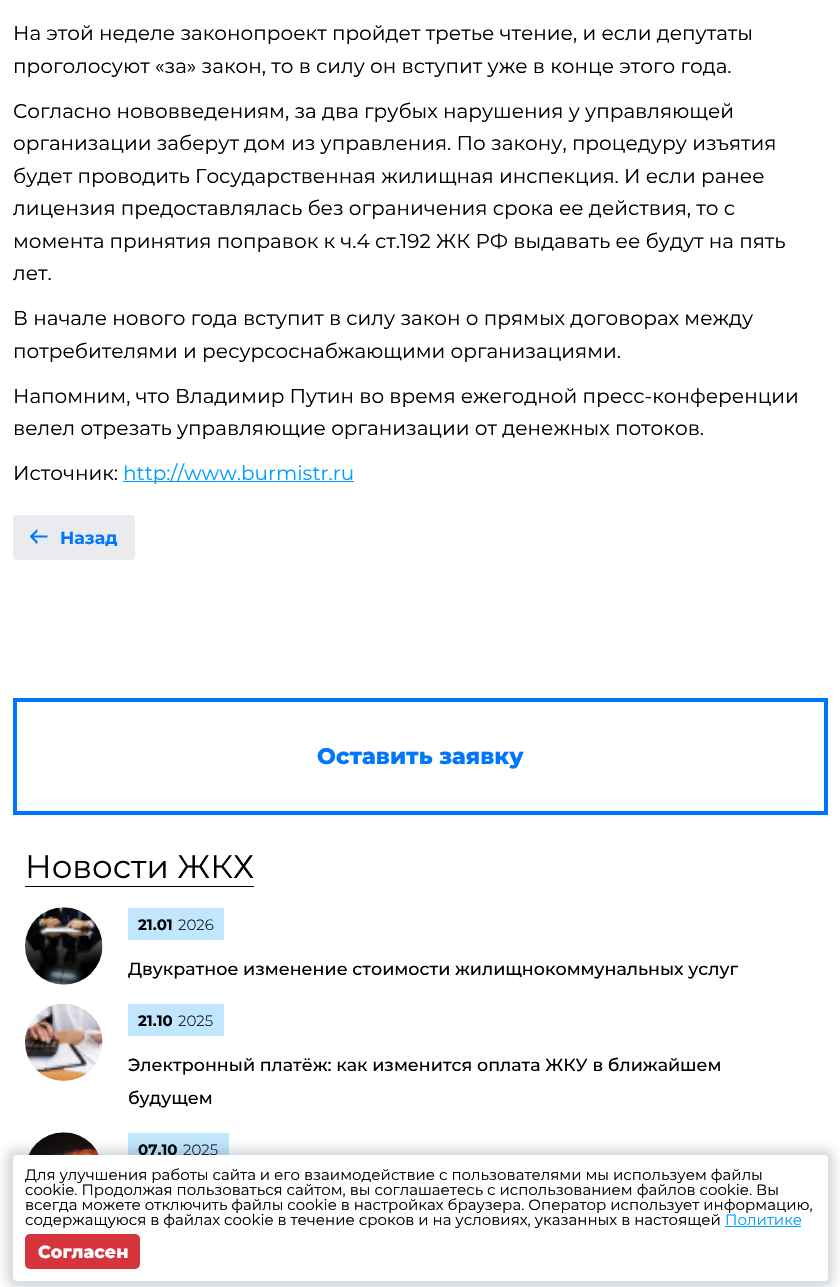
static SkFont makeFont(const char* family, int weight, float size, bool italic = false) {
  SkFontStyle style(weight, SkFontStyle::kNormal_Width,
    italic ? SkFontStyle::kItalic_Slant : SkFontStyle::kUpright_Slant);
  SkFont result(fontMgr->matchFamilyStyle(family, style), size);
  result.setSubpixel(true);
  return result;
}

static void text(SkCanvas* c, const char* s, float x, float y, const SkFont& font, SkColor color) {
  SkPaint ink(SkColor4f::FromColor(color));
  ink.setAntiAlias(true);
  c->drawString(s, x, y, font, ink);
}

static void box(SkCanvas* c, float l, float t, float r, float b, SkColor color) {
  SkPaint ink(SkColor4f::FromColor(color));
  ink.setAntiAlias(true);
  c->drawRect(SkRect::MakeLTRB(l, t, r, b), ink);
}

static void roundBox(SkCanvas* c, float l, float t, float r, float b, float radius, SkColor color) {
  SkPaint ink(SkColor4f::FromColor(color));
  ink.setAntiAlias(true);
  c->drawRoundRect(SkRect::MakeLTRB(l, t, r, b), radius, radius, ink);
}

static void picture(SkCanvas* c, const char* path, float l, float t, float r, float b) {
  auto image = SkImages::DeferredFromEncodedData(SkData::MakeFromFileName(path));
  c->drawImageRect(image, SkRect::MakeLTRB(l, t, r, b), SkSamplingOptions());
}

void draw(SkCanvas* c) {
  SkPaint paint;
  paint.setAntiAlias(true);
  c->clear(0xffffffff);
  SkFont face1 = makeFont("Montserrat", 400, 20);
  text(c, "На этой неделе законопроект пройдет третье чтение, и если депутаты", 13, 40, face1, 0xff000000);
  text(c, "проголосуют «за» закон, то в силу он вступит уже в конце этого года.", 13, 73, face1, 0xff000000);
  text(c, "Согласно нововведениям, за два грубых нарушения у управляющей", 13, 118, face1, 0xff000000);
  text(c, "организации заберут дом из управления. По закону, процедуру изъятия", 13, 150, face1, 0xff000000);
  text(c, "будет проводить Государственная жилищная инспекция. И если ранее", 13, 183, face1, 0xff000000);
  text(c, "лицензия предоставлялась без ограничения срока ее действия, то с", 13, 215, face1, 0xff000000);
  text(c, "момента принятия поправок к ч.4 ст.192 ЖК РФ выдавать ее будут на пять", 13, 248, face1, 0xff000000);
  text(c, "лет.", 13, 280, face1, 0xff000000);
  text(c, "В начале нового года вступит в силу закон о прямых договорах между", 13, 325, face1, 0xff000000);
  text(c, "потребителями и ресурсоснабжающими организациями.", 13, 358, face1, 0xff000000);
  text(c, "Напомним, что Владимир Путин во время ежегодной пресс-конференции", 13, 403, face1, 0xff000000);
  text(c, "велел отрезать управляющие организации от денежных потоков.", 13, 435, face1, 0xff000000);
  text(c, "Источник:", 13, 480, face1, 0xff000000);
  box(c, 123, 481, 354, 482, 0xff009eff);
  text(c, "http://www.burmistr.ru", 123, 480, face1, 0xff009eff);
  roundBox(c, 13, 515, 135, 560, 4, 0xffeaebef);
  picture(c, "img_01.png", 30, 529, 48, 544);
  SkFont face2 = makeFont("Montserrat", 700, 17.5f);
  text(c, "Назад", 60, 544, face2, 0xff0076ff);
  paint.setStyle(SkPaint::kStroke_Style);
  paint.setStrokeWidth(4);
  paint.setColor(0xff0076ff);
  c->drawRect(SkRect::MakeLTRB(15, 700, 826, 813), paint);
  SkFont face3 = makeFont("Montserrat", 800, 22.5f);
  text(c, "Оставить заявку", 317, 764, face3, 0xff0076ff);
  SkFont face4 = makeFont("Montserrat", 400, 32.5f);
  text(c, "Новости ЖКХ", 25, 878, face4, 0xff000000);
  box(c, 25, 886, 254, 887, 0xff000000);
  picture(c, "img_02.png", 25, 907, 103, 985);
  box(c, 128, 908, 224, 940, 0xffc1e7ff);
  SkFont face5 = makeFont("Montserrat", 700, 15);
  text(c, "21.01", 138, 930, face5, 0xff000000);
  SkFont face6 = makeFont("Montserrat", 300, 15);
  text(c, "2026", 178, 930, face6, 0xff000000);
  SkFont face7 = makeFont("Montserrat", 500, 17.5f);
  text(c, "Двукратное изменение стоимости жилищно‑коммунальных услуг", 128, 975, face7, 0xff000000);
  picture(c, "img_03.png", 25, 1003, 103, 1081);
  box(c, 128, 1004, 224, 1036, 0xffc1e7ff);
  text(c, "21.10", 138, 1026, face5, 0xff000000);
  text(c, "2025", 178, 1026, face6, 0xff000000);
  text(c, "Электронный платёж: как изменится оплата ЖКУ в ближайшем", 128, 1071, face7, 0xff000000);
  text(c, "будущем", 128, 1104, face7, 0xff000000);
  picture(c, "img_04.png", 28, 1132, 99, 1155);
  box(c, 128, 1133, 229, 1155, 0xffc1e7ff);
  text(c, "07.10", 138, 1155, face5, 0xff000000);
  text(c, "2025", 183, 1155, face6, 0xff000000);
  paint.setStyle(SkPaint::kFill_Style);
  paint.setColor(0x33223c50);
  paint.setMaskFilter(SkMaskFilter::MakeBlur(kNormal_SkBlurStyle, 5.5f));
  c->drawRoundRect(SkRect::MakeLTRB(6, 1149, 834, 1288), 10, 10, paint);
  paint.setMaskFilter(nullptr);
  roundBox(c, 13, 1155, 828, 1281, 4, 0xffffffff);
  SkFont face8 = makeFont("Montserrat", 400, 15);
  text(c, "Для улучшения работы сайта и его взаимодействие с пользователями мы используем файлы", 25, 1180, face8, 0xff000000);
  text(c, "cookie. Продолжая пользоваться сайтом, вы соглашаетесь с использованием файлов cookie. Вы", 25, 1195, face8, 0xff000000);
  text(c, "всегда можете отключить файлы cookie в настройках браузера. Оператор использует информацию,", 25, 1210, face8, 0xff000000);
  text(c, "содержащуюся в файлах cookie в течение сроков и на условиях, указанных в настоящей", 25, 1225, face8, 0xff000000);
  text(c, "Политике", 725, 1225, face8, 0xff009eff);
  box(c, 725, 1226, 801, 1227, 0xff009eff);
  roundBox(c, 25, 1234, 140, 1269, 5, 0xffd6343d);
  SkFont face9 = makeFont("Montserrat", 800, 17.5f);
  text(c, "Согласен", 38, 1258, face9, 0xffffffff);
}
